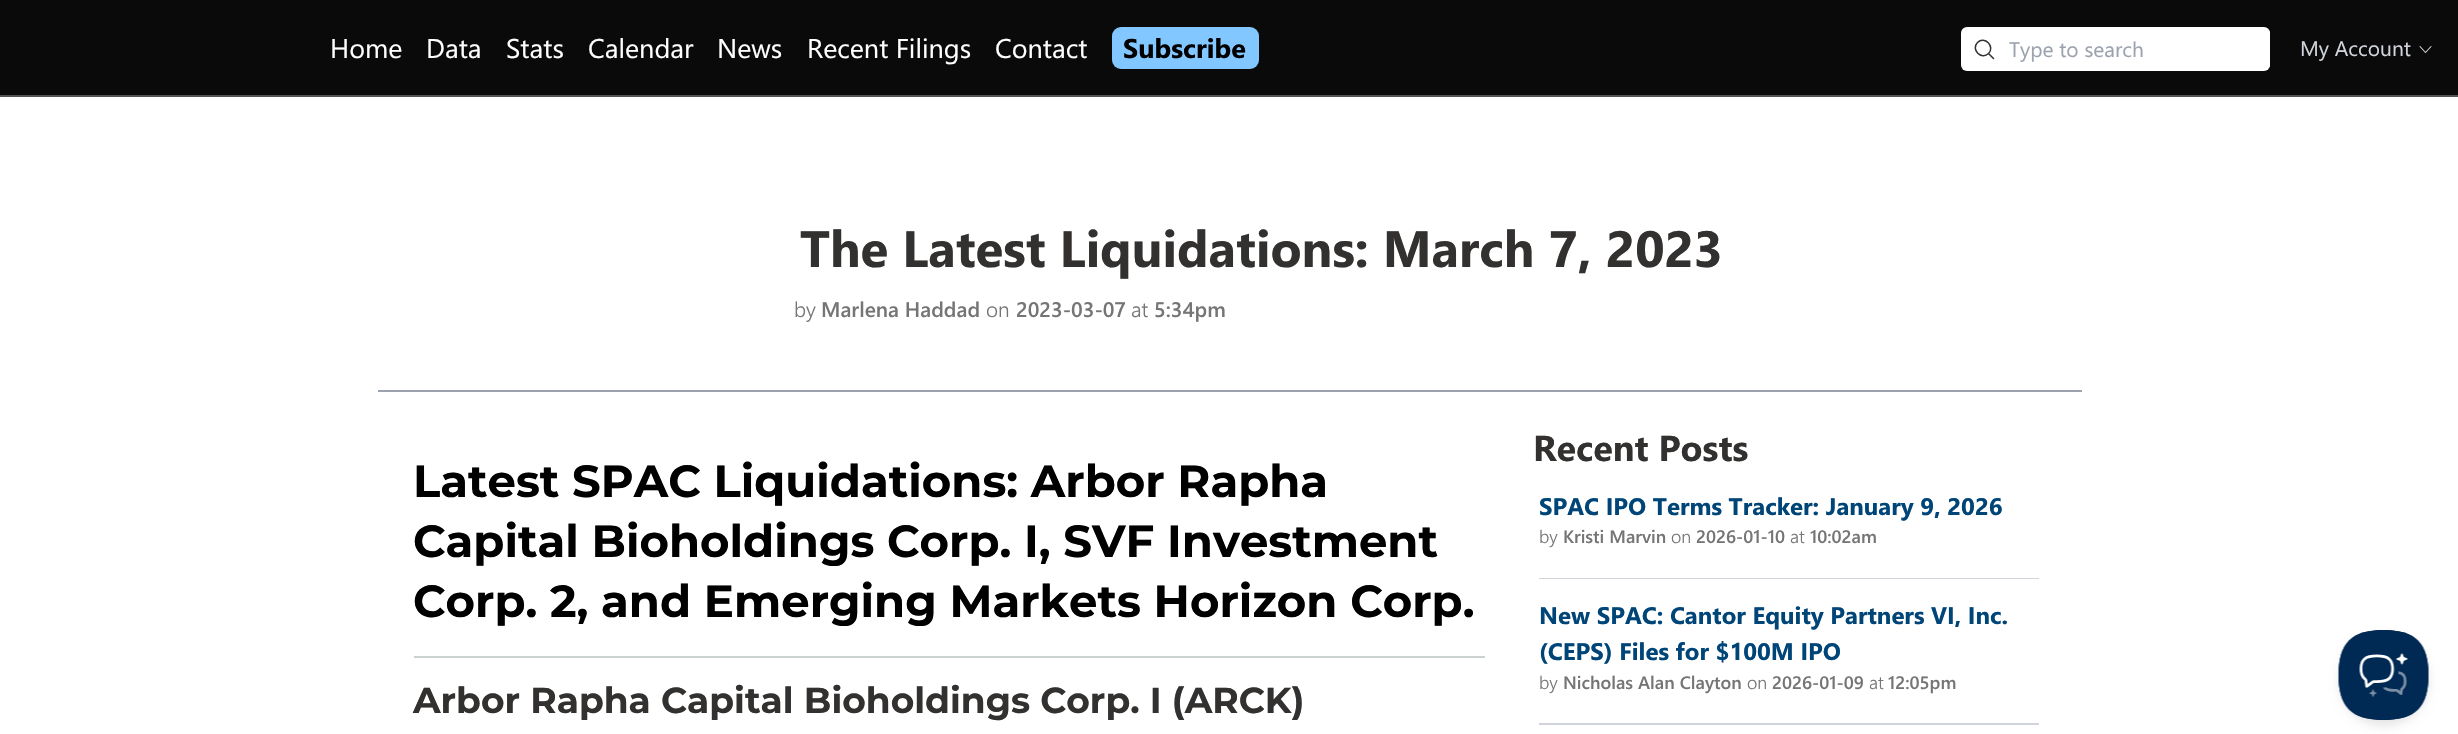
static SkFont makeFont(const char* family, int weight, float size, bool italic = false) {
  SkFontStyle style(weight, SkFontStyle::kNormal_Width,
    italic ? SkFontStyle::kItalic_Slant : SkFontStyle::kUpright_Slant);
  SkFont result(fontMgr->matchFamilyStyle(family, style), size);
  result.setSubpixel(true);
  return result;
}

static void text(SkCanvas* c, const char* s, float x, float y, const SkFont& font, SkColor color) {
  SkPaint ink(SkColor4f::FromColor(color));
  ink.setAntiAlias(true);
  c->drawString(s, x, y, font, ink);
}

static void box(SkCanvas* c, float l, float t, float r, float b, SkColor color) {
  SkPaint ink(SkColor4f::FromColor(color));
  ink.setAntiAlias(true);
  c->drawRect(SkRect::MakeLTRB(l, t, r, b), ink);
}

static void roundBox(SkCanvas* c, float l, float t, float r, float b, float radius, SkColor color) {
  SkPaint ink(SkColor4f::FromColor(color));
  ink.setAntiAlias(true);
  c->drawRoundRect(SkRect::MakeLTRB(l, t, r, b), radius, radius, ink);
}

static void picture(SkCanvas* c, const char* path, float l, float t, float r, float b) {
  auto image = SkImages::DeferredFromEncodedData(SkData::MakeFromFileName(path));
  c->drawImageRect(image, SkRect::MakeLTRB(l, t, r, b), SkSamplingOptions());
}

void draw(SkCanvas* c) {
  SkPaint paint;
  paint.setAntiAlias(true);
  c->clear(0xffffffff);
  box(c, 0, 0, 2458, 95, 0xff0a0a0a);
  box(c, 0, 95, 2458, 97, 0xff535353);
  SkFont face1 = makeFont("Segoe UI", 400, 27);
  text(c, "Home", 330, 58, face1, 0xffffffff);
  text(c, "Data", 426, 58, face1, 0xffffffff);
  text(c, "Stats", 506, 58, face1, 0xffffffff);
  text(c, "Calendar", 588, 58, face1, 0xffffffff);
  text(c, "News", 717, 58, face1, 0xffffffff);
  text(c, "Recent Filings", 807, 58, face1, 0xffffffff);
  text(c, "Contact", 995, 58, face1, 0xffffffff);
  roundBox(c, 1112, 27, 1259, 69, 9, 0xff82c7ff);
  SkFont face2 = makeFont("Segoe UI", 700, 27);
  text(c, "Subscribe", 1123, 58, face2, 0xff000000);
  roundBox(c, 1961, 27, 2270, 71, 6, 0xffffffff);
  paint.setStyle(SkPaint::kStroke_Style);
  paint.setStrokeWidth(1.5f);
  paint.setStrokeCap(SkPaint::kRound_Cap);
  paint.setStrokeJoin(SkPaint::kRound_Join);
  paint.setColor(0xff323130);
  c->drawPath(SkPathBuilder().moveTo(1993.5f, 58.5f).lineTo(1988.5f, 53.5f).moveTo(1988.5f, 53.5f).cubicTo(1995.5f, 46.5f, 1984.5f, 35.5f, 1977.5f, 42.5f).cubicTo(1970.5f, 49.5f, 1981.5f, 60.5f, 1988.5f, 53.5f).close().detach(), paint);
  roundBox(c, 2009, 30, 2270, 68, 3, 0xffffffff);
  SkFont face3 = makeFont("Segoe UI", 400, 21);
  text(c, "Type to search", 2009, 57, face3, 0xff9ca3af);
  text(c, "My Account", 2300, 56, face3, 0xffd1d5db);
  paint.setStrokeWidth(1.1f);
  paint.setColor(0xffd1d5db);
  c->drawPath(SkPathBuilder().moveTo(2431, 46.5f).lineTo(2425.5f, 52.5f).lineTo(2420, 46.5f).detach(), paint);
  box(c, 378, 390, 2082, 392, 0xff9ca3af);
  SkFont face4 = makeFont("Segoe UI", 700, 51);
  text(c, "The Latest Liquidations: March 7, 2023", 800, 267, face4, 0xff323130);
  SkFont face5 = makeFont("Segoe UI", 300, 21);
  text(c, "by", 794, 317, face5, 0xff757575);
  SkFont face6 = makeFont("Segoe UI", 600, 21);
  text(c, "Marlena Haddad", 821, 317, face6, 0xff757575);
  text(c, "on", 986, 317, face5, 0xff757575);
  text(c, "2023-03-07", 1016, 317, face6, 0xff757575);
  text(c, "at", 1131, 317, face5, 0xff757575);
  text(c, "5:34pm", 1154, 317, face6, 0xff757575);
  SkFont face7 = makeFont("Montserrat", 700, 45);
  text(c, "Latest SPAC Liquidations: Arbor Rapha", 413, 497, face7, 0xff000000);
  text(c, "Capital Bioholdings Corp. I, SVF Investment", 413, 557, face7, 0xff000000);
  text(c, "Corp. 2, and Emerging Markets Horizon Corp.", 413, 617, face7, 0xff000000);
  box(c, 414, 656, 1485, 658, 0xffccd1d1);
  SkFont face8 = makeFont("Montserrat", 700, 36);
  text(c, "Arbor Rapha Capital Bioholdings Corp. I (ARCK)", 413, 713, face8, 0xff323130);
  SkFont face9 = makeFont("Segoe UI", 700, 36);
  text(c, "Recent Posts", 1533, 461, face9, 0xff323130);
  box(c, 1539, 578, 2039, 579, 0xffd1d5db);
  SkFont face10 = makeFont("Segoe UI", 700, 24);
  text(c, "SPAC IPO Terms Tracker: January 9, 2026", 1539, 515, face10, 0xff004578);
  SkFont face11 = makeFont("Segoe UI", 300, 18);
  text(c, "by", 1539, 543, face11, 0xff757575);
  SkFont face12 = makeFont("Segoe UI", 600, 18);
  text(c, "Kristi Marvin", 1563, 543, face12, 0xff757575);
  text(c, "on", 1671, 543, face11, 0xff757575);
  text(c, "2026-01-10", 1696, 543, face12, 0xff757575);
  text(c, "at", 1790, 543, face11, 0xff757575);
  text(c, "10:02am", 1810, 543, face12, 0xff757575);
  box(c, 1539, 723, 2039, 725, 0xffd1d5db);
  text(c, "New SPAC: Cantor Equity Partners VI, Inc.", 1539, 624, face10, 0xff004578);
  text(c, "(CEPS) Files for $100M IPO", 1539, 660, face10, 0xff004578);
  text(c, "by", 1539, 689, face11, 0xff757575);
  text(c, "Nicholas Alan Clayton", 1563, 689, face12, 0xff757575);
  text(c, "on", 1747, 689, face11, 0xff757575);
  text(c, "2026-01-09", 1772, 689, face12, 0xff757575);
  text(c, "at", 1869, 689, face11, 0xff757575);
  text(c, "12:05pm", 1888, 689, face12, 0xff757575);
  paint.setStyle(SkPaint::kFill_Style);
  paint.setColor(0x1a000000);
  paint.setMaskFilter(SkMaskFilter::MakeBlur(kNormal_SkBlurStyle, 5));
  c->drawRoundRect(SkRect::MakeLTRB(2339, 636, 2429, 726), 45, 45, paint);
  paint.setMaskFilter(nullptr);
  picture(c, "img_01.png", 2338, 630, 2429, 720);
}
